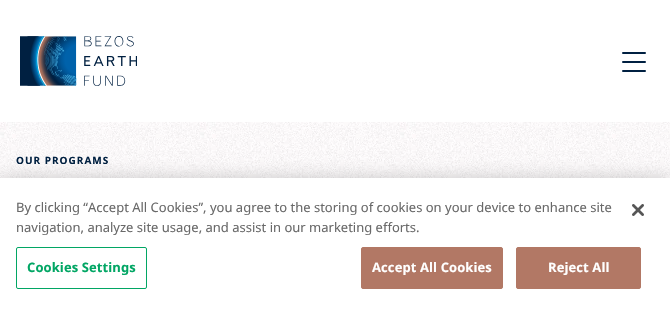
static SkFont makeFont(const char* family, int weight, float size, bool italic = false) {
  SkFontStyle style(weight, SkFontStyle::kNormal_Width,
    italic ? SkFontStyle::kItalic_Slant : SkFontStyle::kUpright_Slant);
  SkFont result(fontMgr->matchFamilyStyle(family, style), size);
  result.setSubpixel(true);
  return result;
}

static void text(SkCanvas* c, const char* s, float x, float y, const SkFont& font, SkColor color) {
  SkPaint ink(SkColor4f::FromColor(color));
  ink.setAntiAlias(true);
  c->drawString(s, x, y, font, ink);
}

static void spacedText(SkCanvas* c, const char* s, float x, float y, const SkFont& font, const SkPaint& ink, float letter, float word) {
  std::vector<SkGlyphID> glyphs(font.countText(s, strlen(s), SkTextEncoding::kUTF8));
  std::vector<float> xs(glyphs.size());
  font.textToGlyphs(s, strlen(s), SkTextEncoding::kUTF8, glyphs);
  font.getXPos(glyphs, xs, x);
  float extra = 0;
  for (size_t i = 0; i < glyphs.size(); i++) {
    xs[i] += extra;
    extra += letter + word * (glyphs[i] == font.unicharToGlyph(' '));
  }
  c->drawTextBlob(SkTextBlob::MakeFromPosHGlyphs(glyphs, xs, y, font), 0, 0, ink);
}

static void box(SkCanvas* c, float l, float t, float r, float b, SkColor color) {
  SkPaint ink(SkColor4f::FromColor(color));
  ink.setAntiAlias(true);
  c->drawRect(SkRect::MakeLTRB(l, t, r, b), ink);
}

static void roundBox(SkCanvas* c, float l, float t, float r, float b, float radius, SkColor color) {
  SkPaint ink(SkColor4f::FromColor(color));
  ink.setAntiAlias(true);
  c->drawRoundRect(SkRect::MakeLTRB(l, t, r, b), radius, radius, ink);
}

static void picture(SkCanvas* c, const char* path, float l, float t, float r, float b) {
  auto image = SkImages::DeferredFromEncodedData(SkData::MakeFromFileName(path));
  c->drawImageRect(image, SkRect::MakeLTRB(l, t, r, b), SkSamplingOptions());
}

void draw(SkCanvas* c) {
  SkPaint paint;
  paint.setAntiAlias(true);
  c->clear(0xffffffff);
  picture(c, "img_01.png", 20, 36, 137, 86);
  roundBox(c, 622, 52, 646, 54, 1, 0xff002041);
  roundBox(c, 622, 61, 646, 63, 1, 0xff002041);
  roundBox(c, 622, 70, 646, 72, 1, 0xff002041);
  picture(c, "img_02.png", 0, 122, 670, 178);
  SkFont face1 = makeFont("Noto Sans", 700, 10);
  paint.setColor(0xff002041);
  spacedText(c, "OUR PROGRAMS", 16, 164, face1, paint, 1, 0);
  paint.setColor(0x33000000);
  paint.setMaskFilter(SkMaskFilter::MakeBlur(kNormal_SkBlurStyle, 9));
  c->drawRect(SkRect::MakeLTRB(0, 178, 670, 310), paint);
  paint.setMaskFilter(nullptr);
  box(c, 0, 178, 670, 310, 0xffffffff);
  SkFont face2 = makeFont("Noto Sans", 400, 13);
  text(c, "By clicking “Accept All Cookies”, you agree to the storing of cookies on your device to enhance site", 16, 212, face2, 0xff696969);
  text(c, "navigation, analyze site usage, and assist in our marketing efforts.", 16, 232, face2, 0xff696969);
  paint.setStyle(SkPaint::kStroke_Style);
  paint.setStrokeWidth(1);
  paint.setColor(0xff01a664);
  c->drawRoundRect(SkRect::MakeLTRB(16.5f, 247.5f, 146.5f, 288.5f), 1.5f, 1.5f, paint);
  SkFont face3 = makeFont("Noto Sans", 700, 13);
  paint.setStyle(SkPaint::kFill_Style);
  spacedText(c, "Cookies Settings", 27, 272, face3, paint, 0.1f, 0);
  paint.setColor(0xffb27865);
  c->drawRoundRect(SkRect::MakeLTRB(361.5f, 247.5f, 502.5f, 288.5f), 1.5f, 1.5f, paint);
  paint.setStyle(SkPaint::kStroke_Style);
  c->drawRoundRect(SkRect::MakeLTRB(361.5f, 247.5f, 502.5f, 288.5f), 1.5f, 1.5f, paint);
  paint.setStyle(SkPaint::kFill_Style);
  paint.setColor(0xffffffff);
  spacedText(c, "Accept All Cookies", 372, 272, face3, paint, 0.1f, 0);
  paint.setColor(0xffb27865);
  c->drawRoundRect(SkRect::MakeLTRB(516.5f, 247.5f, 640.5f, 288.5f), 1.5f, 1.5f, paint);
  paint.setStyle(SkPaint::kStroke_Style);
  c->drawRoundRect(SkRect::MakeLTRB(516.5f, 247.5f, 640.5f, 288.5f), 1.5f, 1.5f, paint);
  paint.setStyle(SkPaint::kFill_Style);
  paint.setColor(0xffffffff);
  spacedText(c, "Reject All", 548, 272, face3, paint, 0.1f, 0);
  picture(c, "img_03.png", 632, 204, 644, 216);
}
